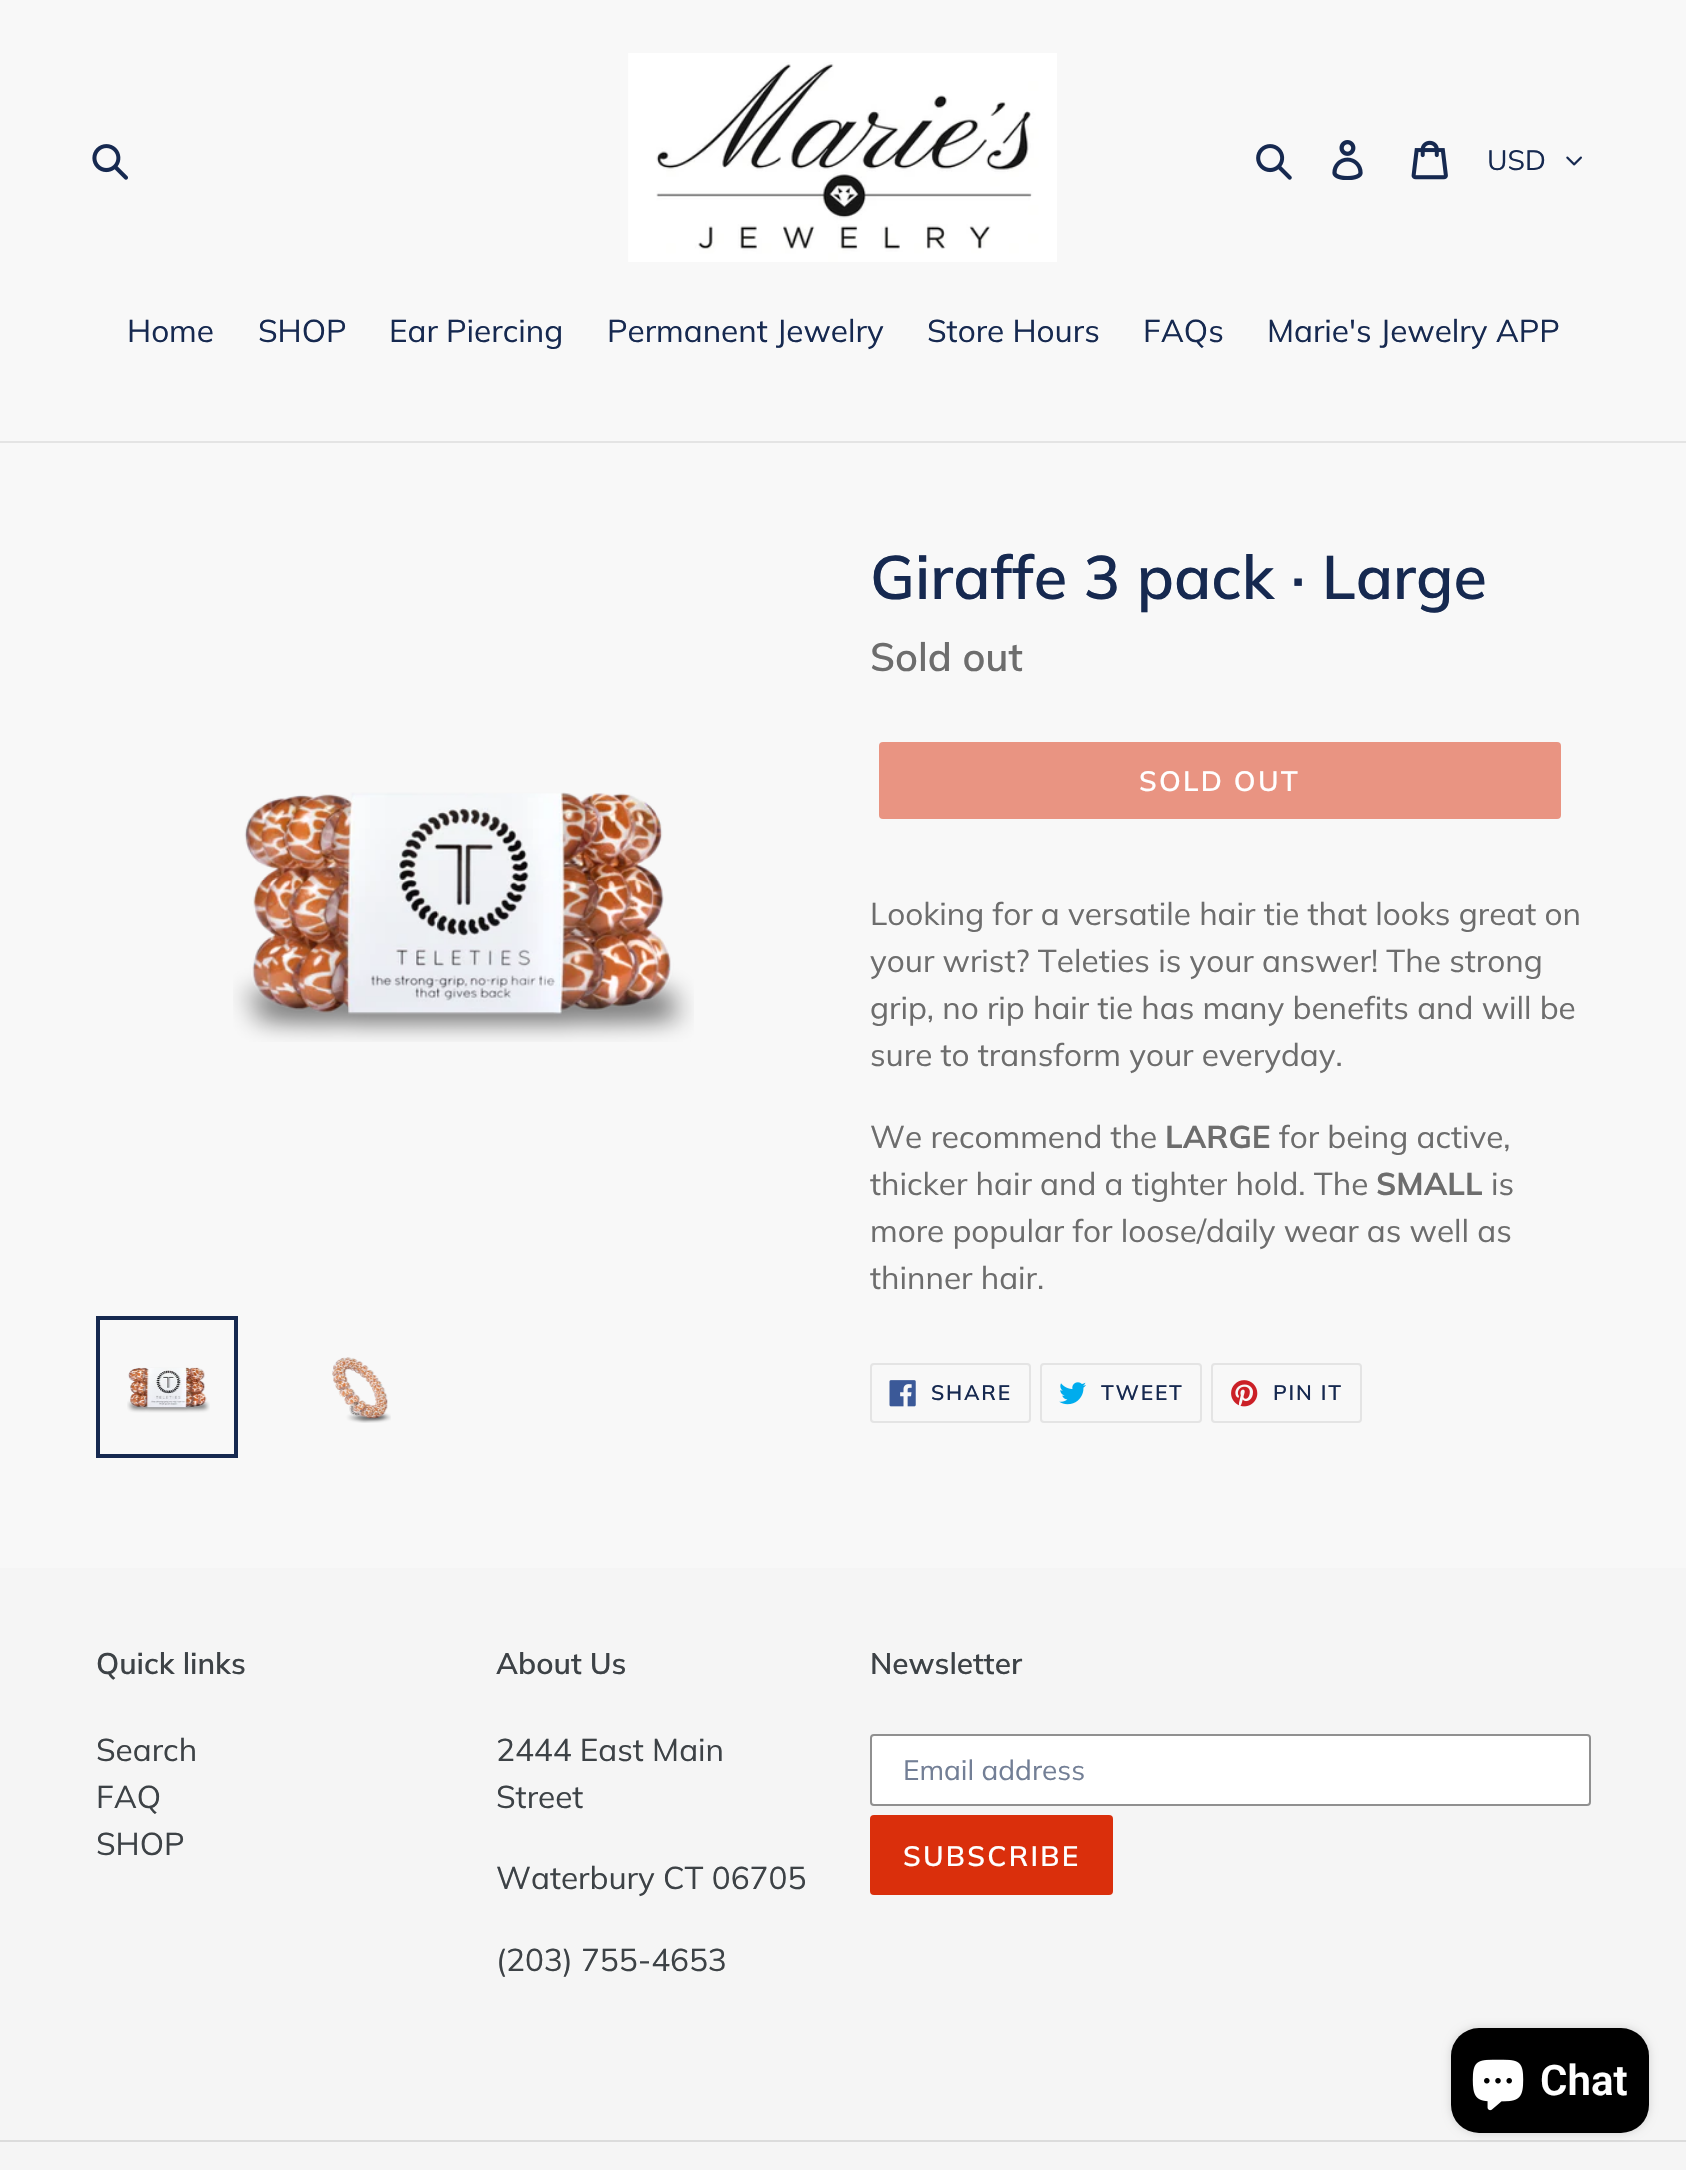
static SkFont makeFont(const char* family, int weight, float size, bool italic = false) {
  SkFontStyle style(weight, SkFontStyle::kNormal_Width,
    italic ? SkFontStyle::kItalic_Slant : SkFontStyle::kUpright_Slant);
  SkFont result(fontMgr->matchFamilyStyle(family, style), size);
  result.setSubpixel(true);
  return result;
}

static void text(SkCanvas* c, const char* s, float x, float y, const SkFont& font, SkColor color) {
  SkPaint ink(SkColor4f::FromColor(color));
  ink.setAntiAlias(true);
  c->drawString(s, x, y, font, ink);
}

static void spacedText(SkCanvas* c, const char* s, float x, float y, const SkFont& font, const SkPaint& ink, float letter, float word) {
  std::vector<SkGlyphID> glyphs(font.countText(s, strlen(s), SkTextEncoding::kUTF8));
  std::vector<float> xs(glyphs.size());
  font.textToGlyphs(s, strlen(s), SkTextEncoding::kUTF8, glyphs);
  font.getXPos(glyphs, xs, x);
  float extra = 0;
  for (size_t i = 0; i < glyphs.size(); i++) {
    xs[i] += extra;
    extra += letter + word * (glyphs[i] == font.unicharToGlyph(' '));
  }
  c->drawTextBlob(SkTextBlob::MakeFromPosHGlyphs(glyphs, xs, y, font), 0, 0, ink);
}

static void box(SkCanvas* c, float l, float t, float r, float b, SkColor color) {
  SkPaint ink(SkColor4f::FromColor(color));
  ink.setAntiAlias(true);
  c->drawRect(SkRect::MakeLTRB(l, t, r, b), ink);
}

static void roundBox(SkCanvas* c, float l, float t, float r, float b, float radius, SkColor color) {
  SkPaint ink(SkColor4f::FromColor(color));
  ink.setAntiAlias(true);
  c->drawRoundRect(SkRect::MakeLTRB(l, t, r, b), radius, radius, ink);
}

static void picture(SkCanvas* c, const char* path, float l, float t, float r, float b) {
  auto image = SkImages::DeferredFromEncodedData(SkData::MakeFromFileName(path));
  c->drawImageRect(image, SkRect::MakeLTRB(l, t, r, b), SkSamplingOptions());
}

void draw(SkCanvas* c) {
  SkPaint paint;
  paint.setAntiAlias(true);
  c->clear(0xfff8f8f8);
  picture(c, "img_01.png", 92, 144, 128, 180);
  picture(c, "img_02.png", 628, 53, 1057, 262);
  picture(c, "img_03.png", 1256, 144, 1292, 180);
  picture(c, "img_04.png", 1332, 140, 1363, 180);
  picture(c, "img_05.png", 1411, 140, 1448, 180);
  SkFont face1 = makeFont("Muli", 400, 28);
  text(c, "USD", 1487, 170, face1, 0xff162950);
  picture(c, "img_06.png", 1566, 156, 1582, 166);
  box(c, 0, 441, 1686, 443, 0xffe4e4e4);
  SkFont face2 = makeFont("Muli", 400, 31.5f);
  text(c, "Home", 127, 342, face2, 0xff162950);
  text(c, "SHOP", 258, 342, face2, 0xff162950);
  text(c, "Ear Piercing", 389, 342, face2, 0xff162950);
  text(c, "Permanent Jewelry", 607, 342, face2, 0xff162950);
  text(c, "Store Hours", 927, 342, face2, 0xff162950);
  text(c, "FAQs", 1143, 342, face2, 0xff162950);
  text(c, "Marie's Jewelry APP", 1267, 342, face2, 0xff162950);
  picture(c, "img_07.png", 233, 792, 694, 1042);
  paint.setStyle(SkPaint::kStroke_Style);
  paint.setStrokeWidth(4);
  paint.setColor(0xff162950);
  c->drawRect(SkRect::MakeLTRB(98, 1318, 236, 1456), paint);
  picture(c, "img_08.png", 127, 1367, 210, 1413);
  picture(c, "img_09.png", 332, 1357, 391, 1423);
  SkFont face3 = makeFont("Muli", 600, 61.25f);
  text(c, "Giraffe 3 pack · Large", 870, 599, face3, 0xff162950);
  SkFont face4 = makeFont("Muli", 600, 39.5f);
  text(c, "Sold out", 870, 671, face4, 0xff6d6d6d);
  roundBox(c, 879, 742, 1561, 819, 4, 0xffe99482);
  SkFont face5 = makeFont("Muli", 600, 28);
  paint.setStyle(SkPaint::kFill_Style);
  paint.setColor(0xffffffff);
  spacedText(c, "SOLD OUT", 1139, 791, face5, paint, 2.25f, 0);
  text(c, "Looking for a versatile hair tie that looks great on", 870, 925, face2, 0xff6d6d6d);
  text(c, "your wrist? Teleties is your answer! The strong", 870, 972, face2, 0xff6d6d6d);
  text(c, "grip, no rip hair tie has many benefits and will be", 870, 1019, face2, 0xff6d6d6d);
  text(c, "sure to transform your everyday.", 870, 1066, face2, 0xff6d6d6d);
  text(c, "We recommend the", 870, 1148, face2, 0xff6d6d6d);
  SkFont face6 = makeFont("Muli", 700, 31.5f);
  text(c, "LARGE", 1165, 1148, face6, 0xff6d6d6d);
  text(c, "for being active,", 1279, 1148, face2, 0xff6d6d6d);
  text(c, "thicker hair and a tighter hold. The", 870, 1195, face2, 0xff6d6d6d);
  text(c, "SMALL", 1376, 1195, face6, 0xff6d6d6d);
  text(c, "is", 1491, 1195, face2, 0xff6d6d6d);
  text(c, "more popular for loose/daily wear as well as", 870, 1242, face2, 0xff6d6d6d);
  text(c, "thinner hair.", 870, 1289, face2, 0xff6d6d6d);
  paint.setStyle(SkPaint::kStroke_Style);
  paint.setStrokeWidth(2);
  paint.setColor(0xffe4e4e4);
  c->drawRoundRect(SkRect::MakeLTRB(871, 1364, 1030, 1422), 3, 3, paint);
  picture(c, "img_10.png", 889, 1380, 916, 1407);
  SkFont face7 = makeFont("Muli", 600, 21);
  paint.setStyle(SkPaint::kFill_Style);
  paint.setColor(0xff162950);
  spacedText(c, "SHARE", 931, 1400, face7, paint, 1.75f, 0);
  paint.setStyle(SkPaint::kStroke_Style);
  paint.setColor(0xffe4e4e4);
  c->drawRoundRect(SkRect::MakeLTRB(1041, 1364, 1201, 1422), 3, 3, paint);
  picture(c, "img_11.png", 1059, 1382, 1086, 1405);
  paint.setStyle(SkPaint::kFill_Style);
  paint.setColor(0xff162950);
  spacedText(c, "TWEET", 1101, 1400, face7, paint, 1.75f, 0);
  paint.setStyle(SkPaint::kStroke_Style);
  paint.setColor(0xffe4e4e4);
  c->drawRoundRect(SkRect::MakeLTRB(1212, 1364, 1361, 1422), 3, 3, paint);
  picture(c, "img_12.png", 1231, 1380, 1258, 1407);
  paint.setStyle(SkPaint::kFill_Style);
  paint.setColor(0xff162950);
  spacedText(c, "PIN IT", 1273, 1400, face7, paint, 1.75f, 0);
  box(c, 0, 1568, 1686, 2170, 0xfff5f5f5);
  SkFont face8 = makeFont("Muli", 600, 29.75f);
  text(c, "Quick links", 96, 1674, face8, 0xff3d4246);
  text(c, "Search", 96, 1761, face2, 0xff3d4246);
  text(c, "FAQ", 96, 1808, face2, 0xff3d4246);
  text(c, "SHOP", 96, 1855, face2, 0xff3d4246);
  text(c, "About Us", 496, 1674, face8, 0xff3d4246);
  text(c, "2444 East Main", 496, 1761, face2, 0xff3d4246);
  text(c, "Street", 496, 1808, face2, 0xff3d4246);
  text(c, "Waterbury CT 06705", 496, 1889, face2, 0xff3d4246);
  text(c, "(203) 755-4653", 496, 1971, face2, 0xff3d4246);
  text(c, "Newsletter", 870, 1674, face8, 0xff3d4246);
  paint.setColor(0xffffffff);
  c->drawRoundRect(SkRect::MakeLTRB(871, 1735, 1590, 1805), 3, 3, paint);
  paint.setStyle(SkPaint::kStroke_Style);
  paint.setColor(0xff909090);
  c->drawRoundRect(SkRect::MakeLTRB(871, 1735, 1590, 1805), 3, 3, paint);
  text(c, "Email address", 903, 1780, face1, 0xff737f96);
  roundBox(c, 870, 1815, 1113, 1895, 4, 0xffda2f0c);
  paint.setStyle(SkPaint::kFill_Style);
  paint.setColor(0xffffffff);
  spacedText(c, "SUBSCRIBE", 903, 1866, face5, paint, 2.25f, 0);
  box(c, 0, 2140, 1686, 2142, 0xffdcdcdc);
  paint.setColor(0x26000000);
  paint.setMaskFilter(SkMaskFilter::MakeBlur(kNormal_SkBlurStyle, 4.5f));
  c->drawRoundRect(SkRect::MakeLTRB(1451, 2028, 1649, 2133), 28, 28, paint);
  paint.setMaskFilter(nullptr);
  roundBox(c, 1451, 2028, 1649, 2133, 28, 0xff000000);
  picture(c, "img_13.png", 1472, 2059, 1524, 2111);
  SkFont face9 = makeFont("Roboto", 600, 42);
  text(c, "Chat", 1540, 2095, face9, 0xffffffff);
}
